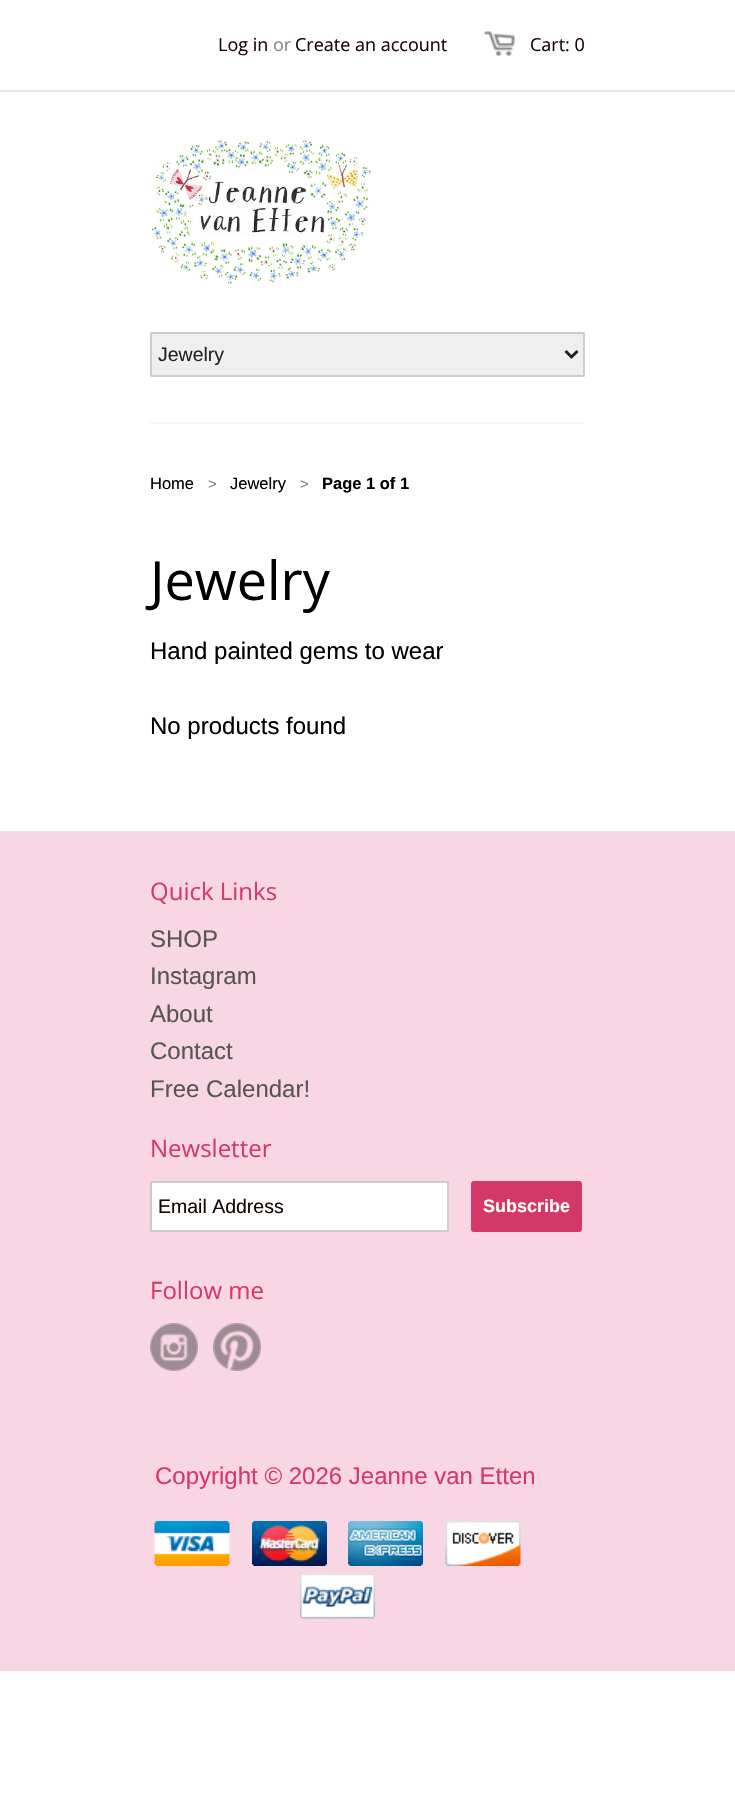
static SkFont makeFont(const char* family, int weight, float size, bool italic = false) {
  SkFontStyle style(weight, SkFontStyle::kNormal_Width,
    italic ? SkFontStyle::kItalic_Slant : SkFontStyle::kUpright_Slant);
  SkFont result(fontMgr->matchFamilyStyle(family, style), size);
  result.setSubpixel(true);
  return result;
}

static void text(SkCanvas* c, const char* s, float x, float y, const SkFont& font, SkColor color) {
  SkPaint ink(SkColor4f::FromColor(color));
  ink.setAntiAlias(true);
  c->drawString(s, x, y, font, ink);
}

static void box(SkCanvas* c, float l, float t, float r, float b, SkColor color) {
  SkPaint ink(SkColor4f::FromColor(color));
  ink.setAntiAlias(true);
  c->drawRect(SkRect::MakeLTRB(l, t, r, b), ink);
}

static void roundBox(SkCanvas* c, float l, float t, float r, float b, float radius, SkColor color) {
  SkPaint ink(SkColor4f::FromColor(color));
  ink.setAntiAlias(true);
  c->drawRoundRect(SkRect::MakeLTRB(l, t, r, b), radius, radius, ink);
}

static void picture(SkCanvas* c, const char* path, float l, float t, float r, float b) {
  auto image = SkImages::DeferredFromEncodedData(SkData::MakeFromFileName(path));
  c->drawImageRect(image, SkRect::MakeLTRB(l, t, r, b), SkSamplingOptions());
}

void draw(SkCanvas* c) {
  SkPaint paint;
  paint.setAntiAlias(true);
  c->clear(0xffffffff);
  box(c, 0, 90, 735, 92, 0xffe5e5e5);
  SkFont face1 = makeFont("Open Sans", 400, 18);
  text(c, "Log in", 218, 51, face1, 0xff190303);
  text(c, "or", 273, 51, face1, 0xff888888);
  text(c, "Create an account", 295, 51, face1, 0xff190303);
  picture(c, "img_01.png", 484, 31, 515, 56);
  text(c, "Cart: 0", 530, 51, face1, 0xff190303);
  box(c, 150, 422, 585, 424, 0xfffaf5f5);
  picture(c, "img_02.png", 150, 137, 371, 287);
  paint.setColor(0xffefefef);
  c->drawRoundRect(SkRect::MakeLTRB(151, 333, 584, 376), 0.5f, 0.5f, paint);
  paint.setStyle(SkPaint::kStroke_Style);
  paint.setStrokeWidth(2);
  paint.setColor(0xffcccccc);
  c->drawRoundRect(SkRect::MakeLTRB(151, 333, 584, 376), 0.5f, 0.5f, paint);
  paint.setStrokeWidth(3);
  paint.setColor(0xff222222);
  c->drawPath(SkPathBuilder().moveTo(565.5f, 351).lineTo(571.5f, 357).lineTo(577.5f, 351).detach(), paint);
  SkFont face2 = makeFont("Liberation Sans", 400, 19.5f);
  text(c, "Jewelry", 158, 361, face2, 0xff222222);
  SkFont face3 = makeFont("Liberation Sans", 400, 16.5f);
  text(c, "Home", 150, 489, face3, 0xff000000);
  SkFont face4 = makeFont("Liberation Sans", 400, 15);
  text(c, ">", 208, 489, face4, 0xff808080);
  text(c, "Jewelry", 230, 489, face3, 0xff000000);
  text(c, ">", 300, 489, face4, 0xff808080);
  SkFont face5 = makeFont("Liberation Sans", 700, 16.5f);
  text(c, "Page 1 of 1", 322, 489, face5, 0xff000000);
  SkFont face6 = makeFont("Open Sans", 400, 54);
  text(c, "Jewelry", 150, 600, face6, 0xff000000);
  SkFont face7 = makeFont("Liberation Sans", 400, 24);
  text(c, "Hand painted gems to wear", 150, 659, face7, 0xff000000);
  text(c, "No products found", 150, 734, face7, 0xff000000);
  box(c, 0, 833, 735, 1671, 0xfff9d6e4);
  box(c, 0, 831, 735, 833, 0xffe5e5e5);
  SkFont face8 = makeFont("Open Sans", 400, 24);
  text(c, "Quick Links", 150, 900, face8, 0xffd43869);
  text(c, "SHOP", 150, 947, face7, 0xff555555);
  text(c, "Instagram", 150, 984, face7, 0xff555555);
  text(c, "About", 150, 1022, face7, 0xff555555);
  text(c, "Contact", 150, 1059, face7, 0xff555555);
  text(c, "Free Calendar!", 150, 1097, face7, 0xff555555);
  text(c, "Newsletter", 150, 1157, face8, 0xffd43869);
  paint.setStyle(SkPaint::kFill_Style);
  paint.setColor(0xffffffff);
  c->drawRoundRect(SkRect::MakeLTRB(151, 1182, 448, 1231), 0.5f, 0.5f, paint);
  paint.setStyle(SkPaint::kStroke_Style);
  paint.setStrokeWidth(2);
  paint.setColor(0xffcccccc);
  c->drawRoundRect(SkRect::MakeLTRB(151, 1182, 448, 1231), 0.5f, 0.5f, paint);
  text(c, "Email Address", 158, 1213, face2, 0xff190303);
  roundBox(c, 471, 1181, 582, 1232, 3, 0xffd43869);
  SkFont face9 = makeFont("Liberation Sans", 700, 18);
  text(c, "Subscribe", 483, 1212, face9, 0xffffffff);
  text(c, "Follow me", 150, 1299, face8, 0xffd43869);
  picture(c, "img_03.png", 150, 1323, 198, 1371);
  picture(c, "img_04.png", 213, 1323, 261, 1371);
  text(c, "Copyright © 2026 Jeanne van Etten", 155, 1484, face7, 0xffd43869);
  picture(c, "img_05.png", 154, 1521, 230, 1566);
  picture(c, "img_06.png", 252, 1521, 327, 1566);
  picture(c, "img_07.png", 348, 1521, 423, 1566);
  picture(c, "img_08.png", 445, 1521, 521, 1566);
  picture(c, "img_09.png", 300, 1573, 375, 1619);
}
